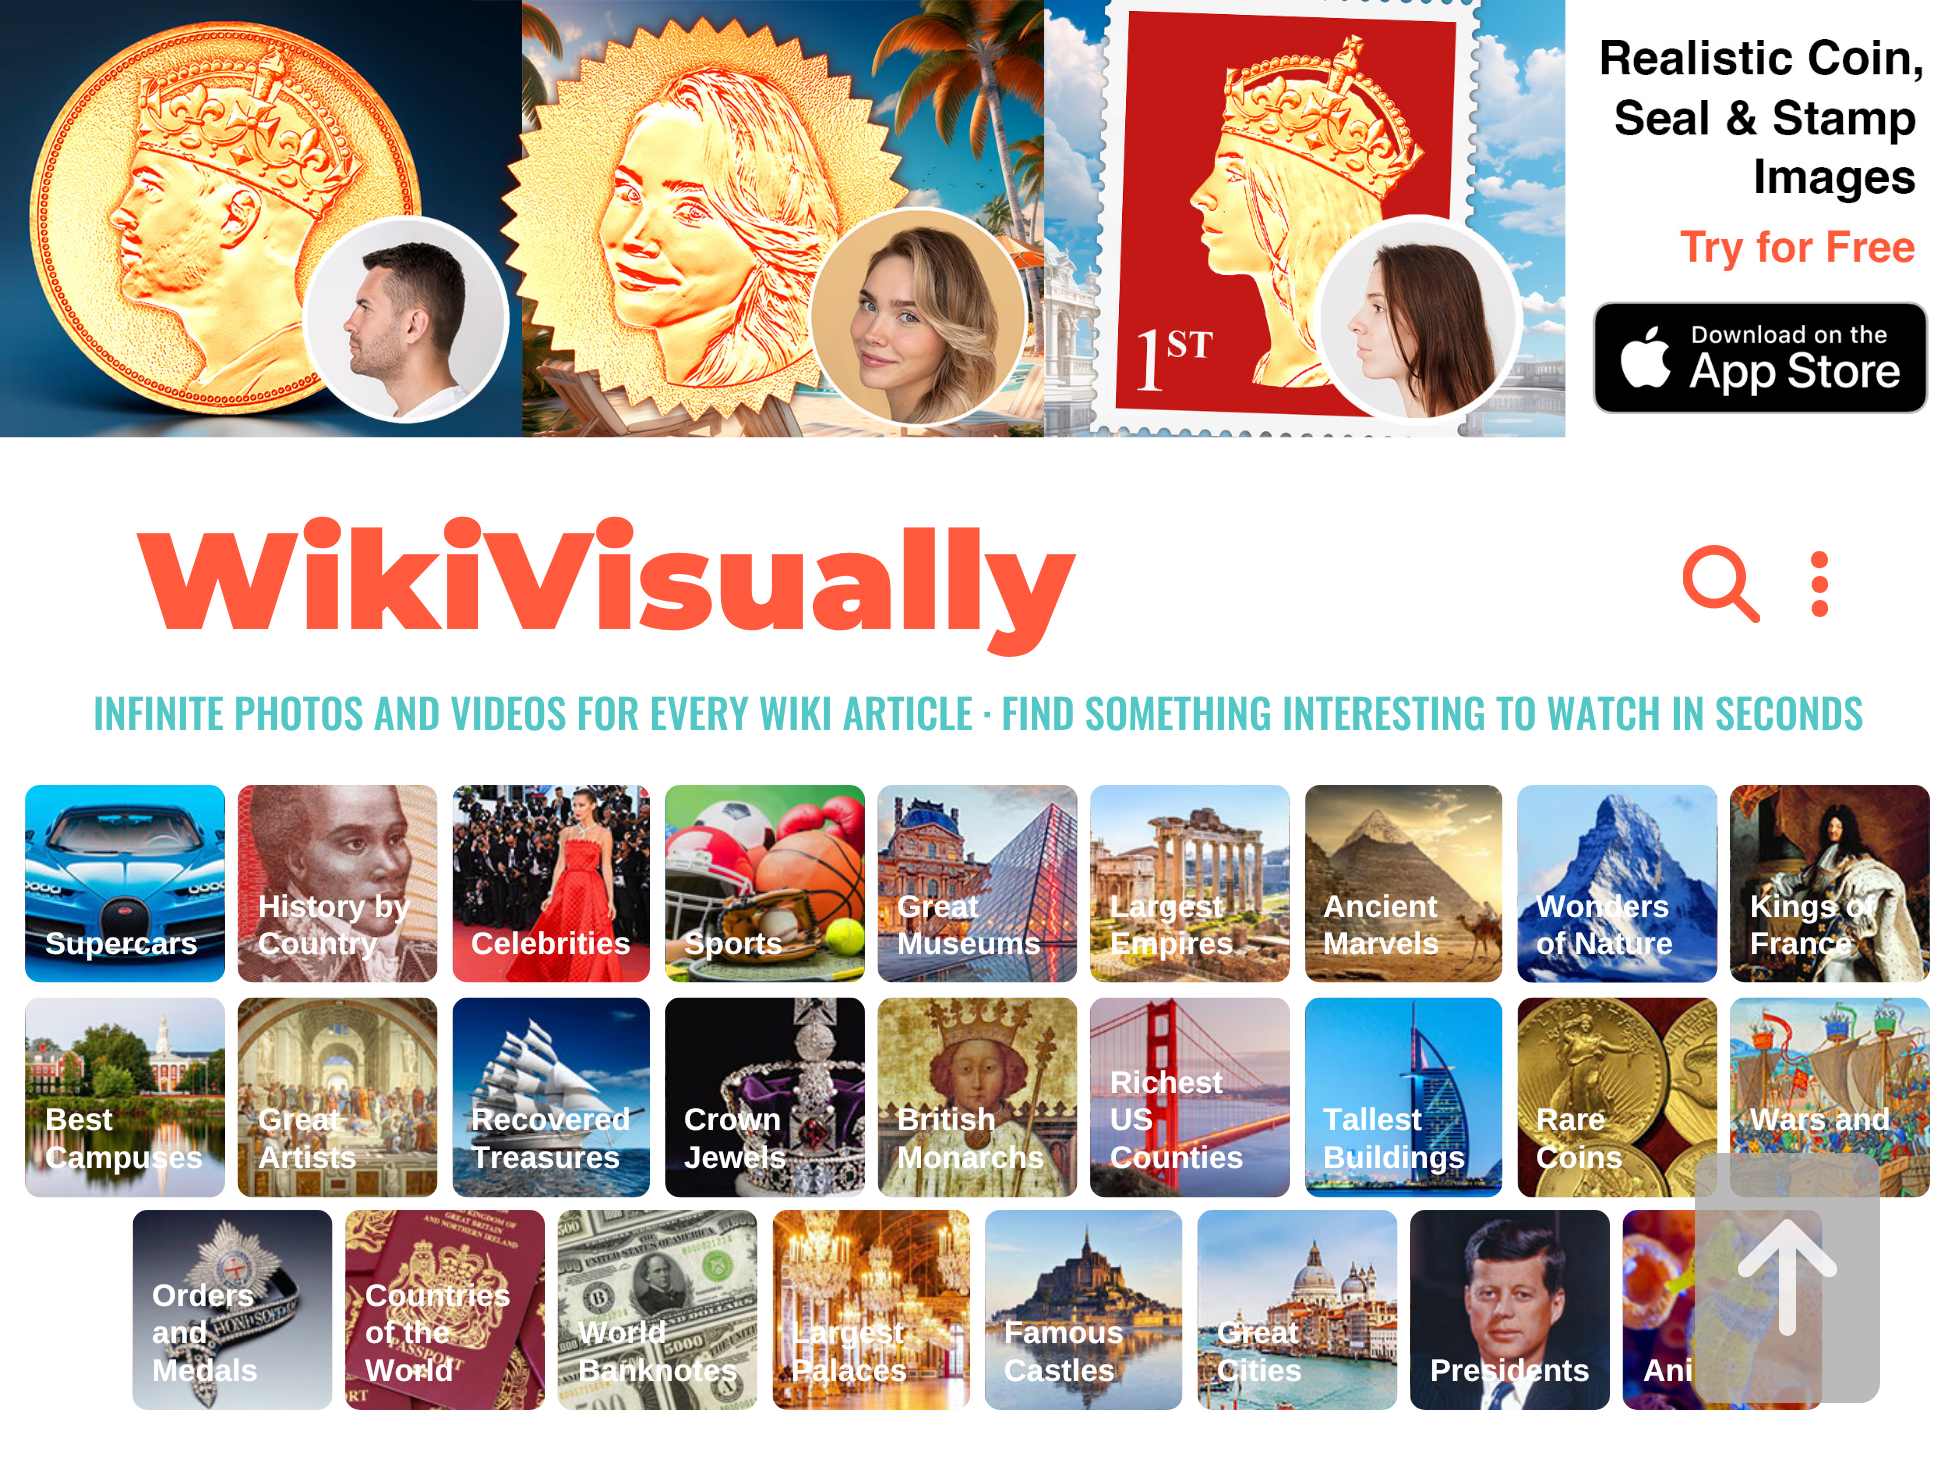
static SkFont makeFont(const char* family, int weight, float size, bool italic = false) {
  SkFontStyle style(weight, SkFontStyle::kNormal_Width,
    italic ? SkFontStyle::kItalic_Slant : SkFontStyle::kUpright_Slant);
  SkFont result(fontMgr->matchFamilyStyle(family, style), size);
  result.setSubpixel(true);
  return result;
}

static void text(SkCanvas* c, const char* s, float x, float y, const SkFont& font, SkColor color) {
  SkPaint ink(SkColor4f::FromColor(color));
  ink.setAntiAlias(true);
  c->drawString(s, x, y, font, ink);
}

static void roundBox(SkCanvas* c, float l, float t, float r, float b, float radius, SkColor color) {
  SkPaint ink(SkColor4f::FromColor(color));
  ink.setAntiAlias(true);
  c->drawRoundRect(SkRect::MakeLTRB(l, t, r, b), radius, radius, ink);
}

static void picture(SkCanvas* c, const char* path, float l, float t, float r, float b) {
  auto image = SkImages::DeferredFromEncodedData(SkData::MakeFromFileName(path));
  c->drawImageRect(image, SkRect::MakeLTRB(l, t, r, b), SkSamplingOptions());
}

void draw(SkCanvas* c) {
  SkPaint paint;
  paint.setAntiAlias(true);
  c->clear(0xffffffff);
  picture(c, "img_01.png", 0, 0, 1929, 438);
  SkFont face1 = makeFont("Montserrat", 100, 136.75f);
  text(c, "WikiVisually", 135, 629, face1, 0xffff5a3d);
  picture(c, "img_02.png", 1683, 545, 1760, 623);
  paint.setColor(0xffff5a3d);
  c->drawPath(SkPathBuilder().moveTo(1820, 600).cubicTo(1809, 600, 1809, 617, 1820, 617).cubicTo(1831, 617, 1831, 600, 1820, 600).close().moveTo(1820, 576).cubicTo(1809, 576, 1809, 593, 1820, 593).cubicTo(1831, 593, 1831, 576, 1820, 576).close().moveTo(1828, 560).cubicTo(1828, 548, 1811, 548, 1811, 560).cubicTo(1811, 571, 1828, 571, 1828, 560).close().detach(), paint);
  SkFont face2 = makeFont("Oswald", 500, 41.05f);
  text(c, "INFINITE PHOTOS AND VIDEOS FOR EVERY WIKI ARTICLE · FIND SOMETHING INTERESTING TO WATCH IN SECONDS", 93, 730, face2, 0xff53c6c6);
  picture(c, "img_03.png", 25, 785, 225, 983);
  SkFont face3 = makeFont("Liberation Sans", 700, 31.25f);
  text(c, "Supercars", 45, 954, face3, 0xffffffff);
  picture(c, "img_04.png", 237, 785, 438, 983);
  text(c, "History by", 258, 917, face3, 0xffffffff);
  text(c, "Country", 258, 954, face3, 0xffffffff);
  picture(c, "img_05.png", 452, 785, 650, 983);
  text(c, "Celebrities", 471, 954, face3, 0xffffffff);
  picture(c, "img_06.png", 665, 785, 865, 983);
  text(c, "Sports", 684, 954, face3, 0xffffffff);
  picture(c, "img_07.png", 877, 785, 1078, 983);
  text(c, "Great", 897, 917, face3, 0xffffffff);
  text(c, "Museums", 897, 954, face3, 0xffffffff);
  picture(c, "img_08.png", 1090, 785, 1290, 983);
  text(c, "Largest", 1110, 917, face3, 0xffffffff);
  text(c, "Empires", 1110, 954, face3, 0xffffffff);
  picture(c, "img_09.png", 1305, 785, 1503, 983);
  text(c, "Ancient", 1323, 917, face3, 0xffffffff);
  text(c, "Marvels", 1323, 954, face3, 0xffffffff);
  picture(c, "img_10.png", 1517, 785, 1718, 983);
  text(c, "Wonders", 1536, 917, face3, 0xffffffff);
  text(c, "of Nature", 1536, 954, face3, 0xffffffff);
  picture(c, "img_11.png", 1730, 785, 1930, 983);
  text(c, "Kings of", 1750, 917, face3, 0xffffffff);
  text(c, "France", 1750, 954, face3, 0xffffffff);
  picture(c, "img_12.png", 25, 997, 225, 1198);
  text(c, "Best", 45, 1130, face3, 0xffffffff);
  text(c, "Campuses", 45, 1168, face3, 0xffffffff);
  picture(c, "img_13.png", 237, 997, 438, 1198);
  text(c, "Great", 258, 1130, face3, 0xffffffff);
  text(c, "Artists", 258, 1168, face3, 0xffffffff);
  picture(c, "img_14.png", 452, 997, 650, 1198);
  text(c, "Recovered", 471, 1130, face3, 0xffffffff);
  text(c, "Treasures", 471, 1168, face3, 0xffffffff);
  picture(c, "img_15.png", 665, 997, 865, 1198);
  text(c, "Crown", 684, 1130, face3, 0xffffffff);
  text(c, "Jewels", 684, 1168, face3, 0xffffffff);
  picture(c, "img_16.png", 877, 997, 1078, 1198);
  text(c, "British", 897, 1130, face3, 0xffffffff);
  text(c, "Monarchs", 897, 1168, face3, 0xffffffff);
  picture(c, "img_17.png", 1090, 997, 1290, 1198);
  text(c, "Richest", 1110, 1093, face3, 0xffffffff);
  text(c, "US", 1110, 1130, face3, 0xffffffff);
  text(c, "Counties", 1110, 1168, face3, 0xffffffff);
  picture(c, "img_18.png", 1305, 997, 1503, 1198);
  text(c, "Tallest", 1323, 1130, face3, 0xffffffff);
  text(c, "Buildings", 1323, 1168, face3, 0xffffffff);
  picture(c, "img_19.png", 1517, 997, 1718, 1198);
  text(c, "Rare", 1536, 1130, face3, 0xffffffff);
  text(c, "Coins", 1536, 1168, face3, 0xffffffff);
  picture(c, "img_20.png", 1730, 997, 1930, 1198);
  text(c, "Wars and", 1750, 1130, face3, 0xffffffff);
  picture(c, "img_21.png", 132, 1210, 333, 1410);
  text(c, "Orders", 152, 1306, face3, 0xffffffff);
  text(c, "and", 152, 1343, face3, 0xffffffff);
  text(c, "Medals", 152, 1381, face3, 0xffffffff);
  picture(c, "img_22.png", 345, 1210, 545, 1410);
  text(c, "Countries", 365, 1306, face3, 0xffffffff);
  text(c, "of the", 365, 1343, face3, 0xffffffff);
  text(c, "World", 365, 1381, face3, 0xffffffff);
  picture(c, "img_23.png", 557, 1210, 758, 1410);
  text(c, "World", 578, 1343, face3, 0xffffffff);
  text(c, "Banknotes", 578, 1381, face3, 0xffffffff);
  picture(c, "img_24.png", 772, 1210, 970, 1410);
  text(c, "Largest", 791, 1343, face3, 0xffffffff);
  text(c, "Palaces", 791, 1381, face3, 0xffffffff);
  picture(c, "img_25.png", 985, 1210, 1183, 1410);
  text(c, "Famous", 1004, 1343, face3, 0xffffffff);
  text(c, "Castles", 1004, 1381, face3, 0xffffffff);
  picture(c, "img_26.png", 1197, 1210, 1398, 1410);
  text(c, "Great", 1217, 1343, face3, 0xffffffff);
  text(c, "Cities", 1217, 1381, face3, 0xffffffff);
  picture(c, "img_27.png", 1410, 1210, 1610, 1410);
  text(c, "Presidents", 1430, 1381, face3, 0xffffffff);
  picture(c, "img_28.png", 1622, 1210, 1823, 1410);
  text(c, "Ani", 1643, 1381, face3, 0xffffffff);
  roundBox(c, 1695, 1153, 1880, 1403, 20, 0xcca9a9a9);
  c->save();
  c->clipRect(SkRect::MakeLTRB(1738, 1153, 1838, 1403));
  paint.setColor(0xccffffff);
  c->drawPath(SkPathBuilder().moveTo(1793, 1222).cubicTo(1790, 1218, 1785, 1218, 1782, 1222).lineTo(1740, 1263).cubicTo(1737, 1267, 1737, 1272, 1740, 1275).cubicTo(1743, 1278, 1748, 1278, 1752, 1275).lineTo(1779, 1248).lineTo(1779, 1328).cubicTo(1779, 1332, 1783, 1336, 1788, 1336).cubicTo(1792, 1336, 1796, 1332, 1796, 1328).lineTo(1796, 1248).lineTo(1823, 1275).cubicTo(1827, 1278, 1832, 1278, 1835, 1275).cubicTo(1838, 1272, 1838, 1267, 1835, 1263).close().detach(), paint);
  c->restore();
}
